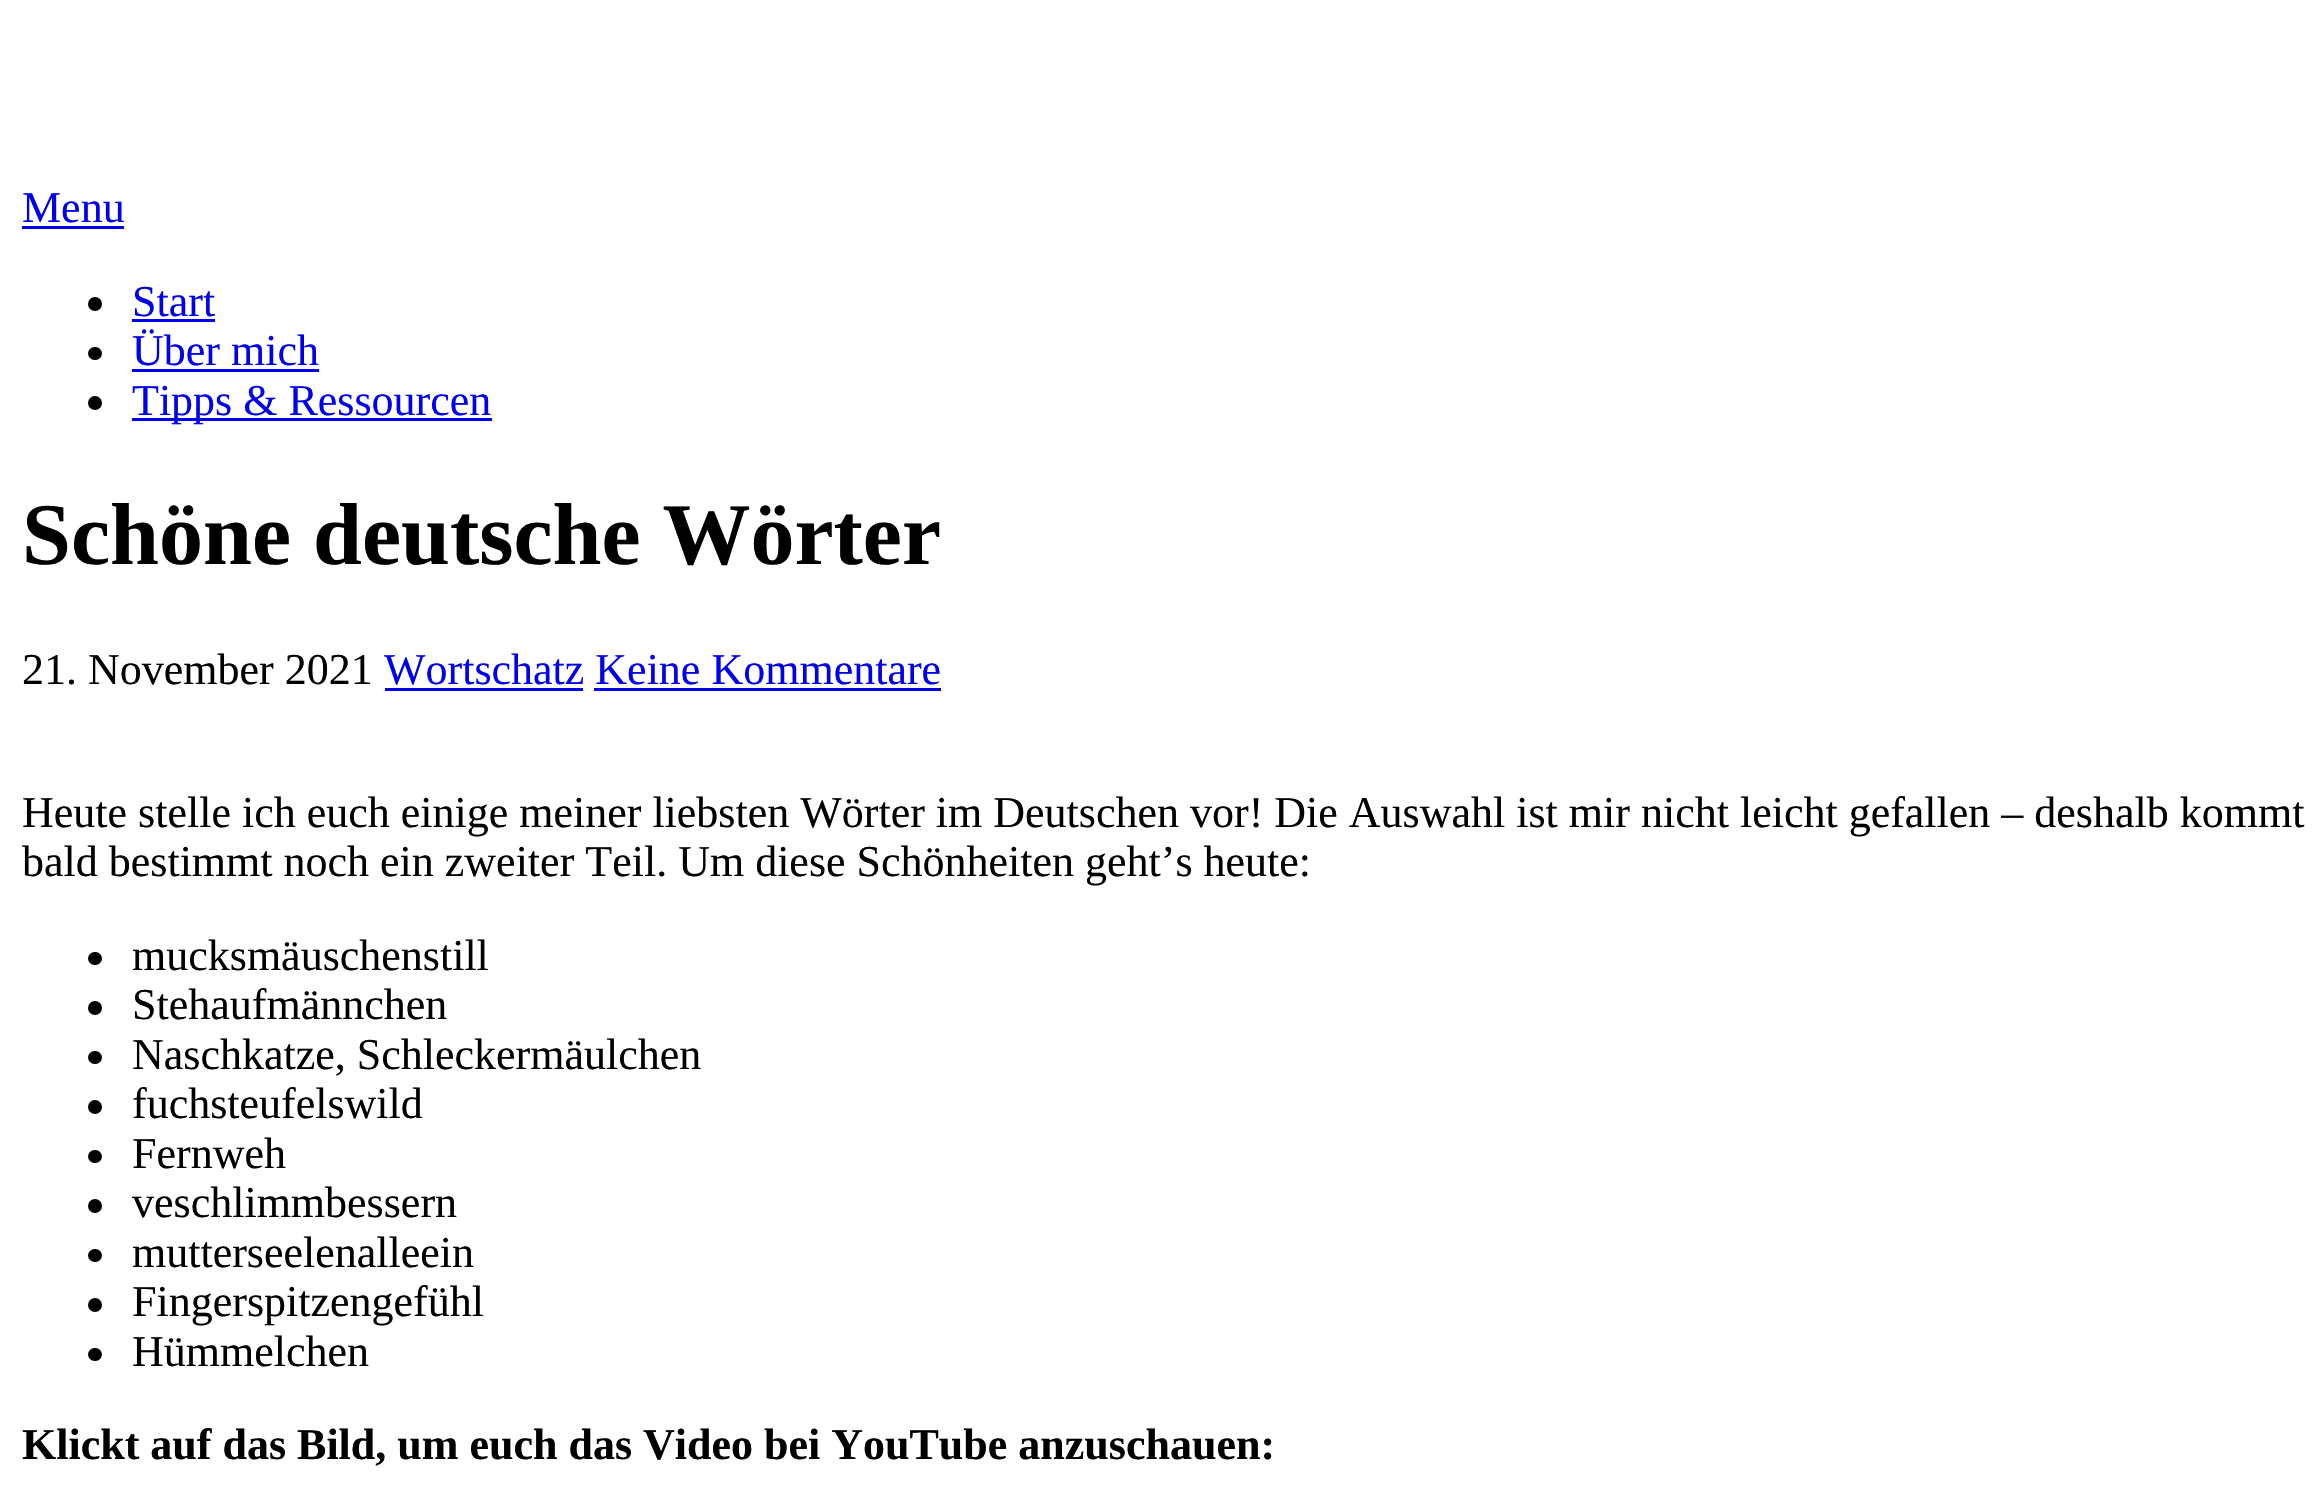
static SkFont makeFont(const char* family, int weight, float size, bool italic = false) {
  SkFontStyle style(weight, SkFontStyle::kNormal_Width,
    italic ? SkFontStyle::kItalic_Slant : SkFontStyle::kUpright_Slant);
  SkFont result(fontMgr->matchFamilyStyle(family, style), size);
  result.setSubpixel(true);
  return result;
}

static void text(SkCanvas* c, const char* s, float x, float y, const SkFont& font, SkColor color) {
  SkPaint ink(SkColor4f::FromColor(color));
  ink.setAntiAlias(true);
  c->drawString(s, x, y, font, ink);
}

static void box(SkCanvas* c, float l, float t, float r, float b, SkColor color) {
  SkPaint ink(SkColor4f::FromColor(color));
  ink.setAntiAlias(true);
  c->drawRect(SkRect::MakeLTRB(l, t, r, b), ink);
}

static void roundBox(SkCanvas* c, float l, float t, float r, float b, float radius, SkColor color) {
  SkPaint ink(SkColor4f::FromColor(color));
  ink.setAntiAlias(true);
  c->drawRoundRect(SkRect::MakeLTRB(l, t, r, b), radius, radius, ink);
}

void draw(SkCanvas* c) {
  SkPaint paint;
  paint.setAntiAlias(true);
  c->clear(0xffffffff);
  SkFont face1 = makeFont("Liberation Serif", 400, 44);
  text(c, "Menu", 22, 222, face1, 0xff0000ee);
  box(c, 22, 226, 124, 229, 0xff0000ee);
  paint.setColor(0xff000000);
  c->drawCircle(95, 304, 7, paint);
  text(c, "Start", 132, 316, face1, 0xff0000ee);
  box(c, 132, 319, 215, 322, 0xff0000ee);
  roundBox(c, 88, 347, 102, 360, 6.5f, 0xff000000);
  text(c, "Über mich", 132, 365, face1, 0xff0000ee);
  box(c, 132, 369, 319, 372, 0xff0000ee);
  c->drawCircle(95, 403, 7, paint);
  box(c, 132, 418, 492, 421, 0xff0000ee);
  text(c, "Tipps & Ressourcen", 132, 415, face1, 0xff0000ee);
  SkFont face2 = makeFont("Liberation Serif", 700, 88);
  text(c, "Schöne deutsche Wörter", 22, 564, face2, 0xff000000);
  text(c, "21. November 2021", 22, 684, face1, 0xff000000);
  text(c, "Wortschatz Keine Kommentare", 384, 684, face1, 0xff0000ee);
  box(c, 385, 688, 583, 691, 0xff0000ee);
  box(c, 594, 688, 941, 691, 0xff0000ee);
  text(c, "Heute stelle ich euch einige meiner liebsten Wörter im Deutschen vor! Die Auswahl ist mir nicht leicht gefallen – deshalb kommt", 22, 827, face1, 0xff000000);
  text(c, "bald bestimmt noch ein zweiter Teil. Um diese Schönheiten geht’s heute:", 22, 876, face1, 0xff000000);
  roundBox(c, 88, 952, 102, 965, 6.5f, 0xff000000);
  text(c, "mucksmäuschenstill", 132, 970, face1, 0xff000000);
  c->drawCircle(95, 1008, 7, paint);
  text(c, "Stehaufmännchen", 132, 1019, face1, 0xff000000);
  roundBox(c, 88, 1051, 102, 1064, 6.5f, 0xff000000);
  text(c, "Naschkatze, Schleckermäulchen", 132, 1069, face1, 0xff000000);
  c->drawCircle(95, 1107, 7, paint);
  text(c, "fuchsteufelswild", 132, 1118, face1, 0xff000000);
  roundBox(c, 88, 1150, 102, 1163, 6.5f, 0xff000000);
  text(c, "Fernweh", 132, 1168, face1, 0xff000000);
  c->drawCircle(95, 1206, 7, paint);
  text(c, "veschlimmbessern", 132, 1217, face1, 0xff000000);
  roundBox(c, 88, 1249, 102, 1262, 6.5f, 0xff000000);
  text(c, "mutterseelenalleein", 132, 1267, face1, 0xff000000);
  c->drawCircle(95, 1305, 7, paint);
  text(c, "Fingerspitzengefühl", 132, 1316, face1, 0xff000000);
  roundBox(c, 88, 1348, 102, 1361, 6.5f, 0xff000000);
  text(c, "Hümmelchen", 132, 1366, face1, 0xff000000);
  SkFont face3 = makeFont("Liberation Serif", 700, 44);
  text(c, "Klickt auf das Bild, um euch das Video bei YouTube anzuschauen:", 22, 1459, face3, 0xff000000);
}
